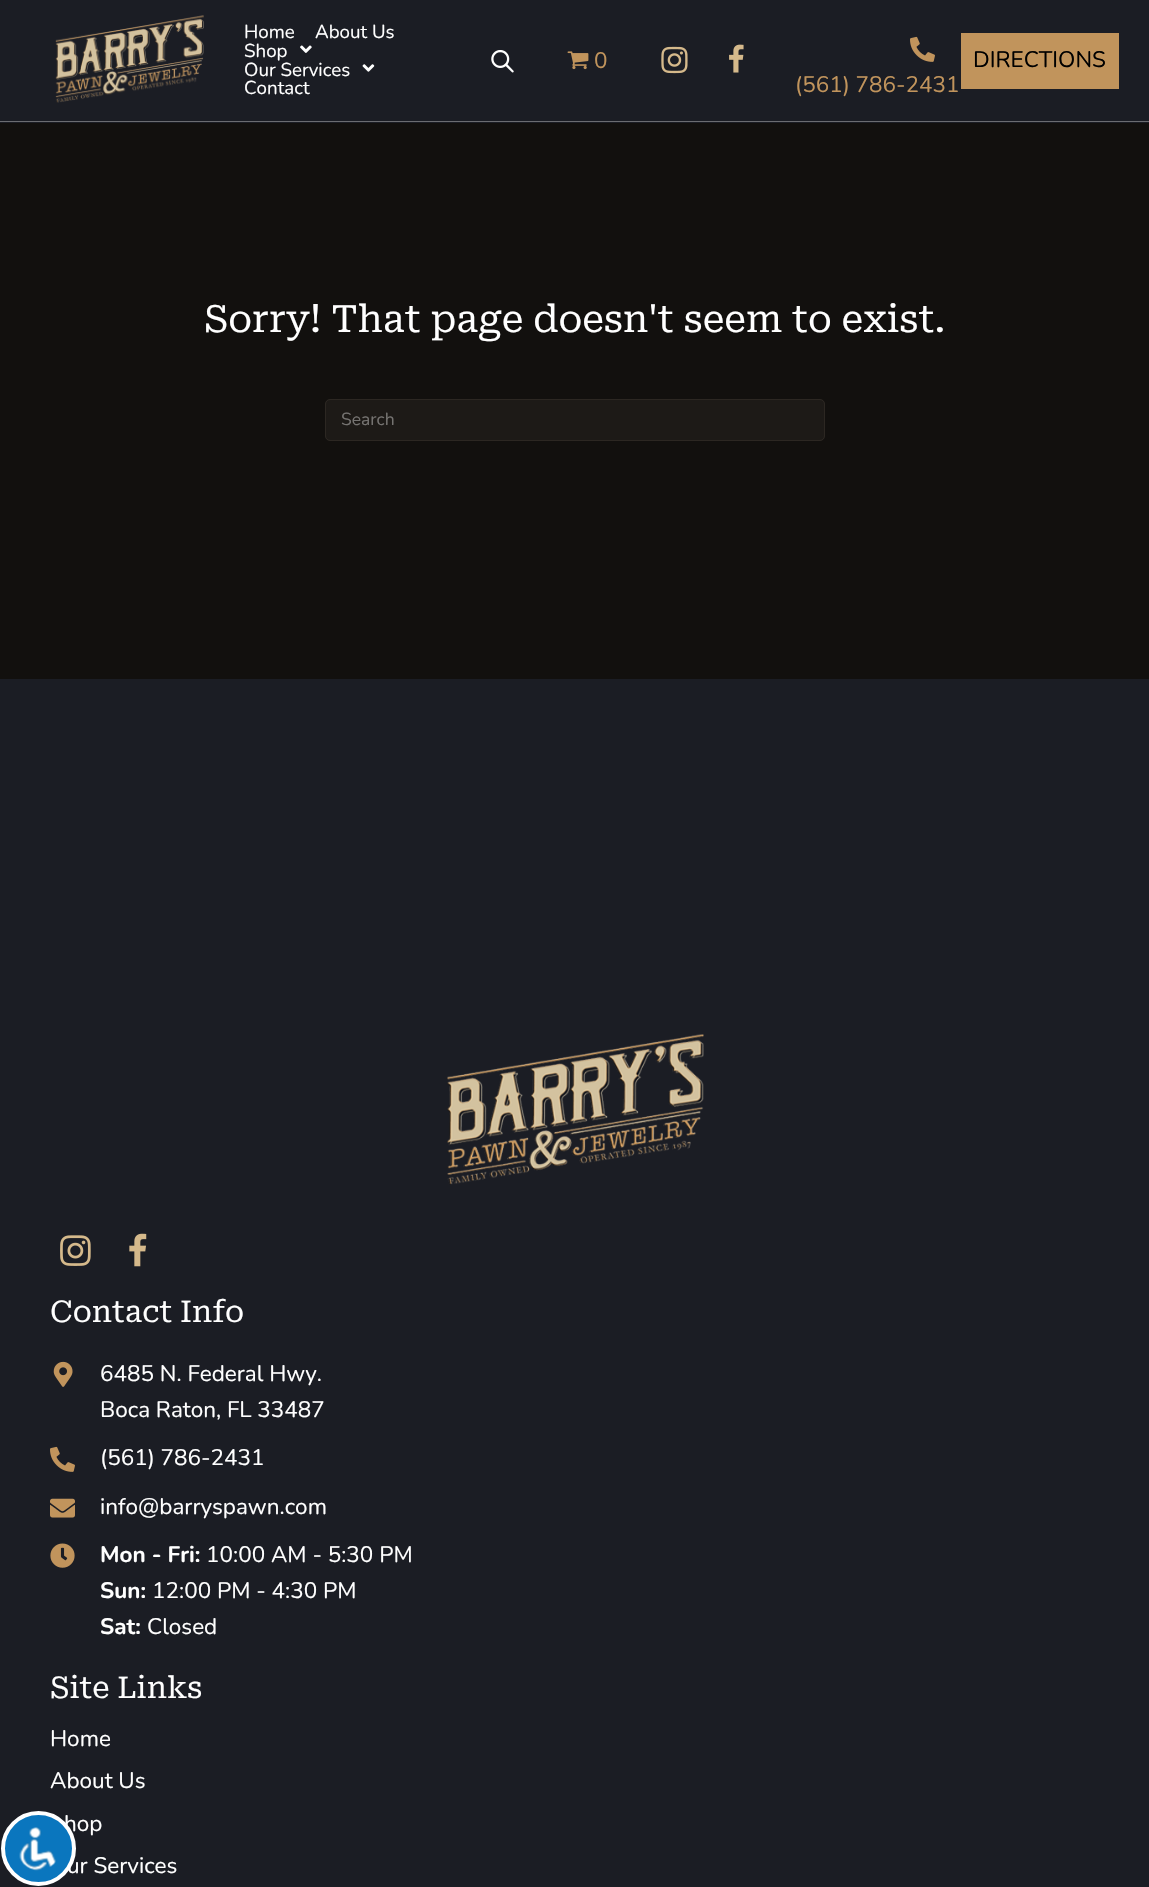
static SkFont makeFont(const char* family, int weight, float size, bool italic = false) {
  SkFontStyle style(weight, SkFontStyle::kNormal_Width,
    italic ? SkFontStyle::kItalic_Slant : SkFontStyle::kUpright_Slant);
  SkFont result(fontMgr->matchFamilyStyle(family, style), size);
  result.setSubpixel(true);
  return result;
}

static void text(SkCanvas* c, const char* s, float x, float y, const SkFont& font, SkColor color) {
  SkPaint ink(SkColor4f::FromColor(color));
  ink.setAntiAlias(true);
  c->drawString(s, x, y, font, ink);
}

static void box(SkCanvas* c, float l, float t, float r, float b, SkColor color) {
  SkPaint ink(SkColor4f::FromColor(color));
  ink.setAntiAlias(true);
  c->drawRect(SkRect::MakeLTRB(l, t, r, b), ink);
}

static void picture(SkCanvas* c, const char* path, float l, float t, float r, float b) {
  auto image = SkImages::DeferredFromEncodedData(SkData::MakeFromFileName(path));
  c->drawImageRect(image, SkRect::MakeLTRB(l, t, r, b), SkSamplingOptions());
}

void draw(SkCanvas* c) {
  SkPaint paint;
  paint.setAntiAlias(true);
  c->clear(0xff1b1d24);
  SkFont face1 = makeFont("Nunito", 400, 22.5f);
  text(c, "hop", 64, 1831, face1, 0xffffffff);
  text(c, "ur Services", 67, 1873, face1, 0xffffffff);
  paint.setColor(0xff0a76be);
  c->drawCircle(38.5f, 1848.5f, 35.5f, paint);
  paint.setStyle(SkPaint::kStroke_Style);
  paint.setStrokeWidth(4);
  paint.setColor(0xffffffff);
  c->drawCircle(38.5f, 1848.5f, 35.5f, paint);
  picture(c, "img_01.png", 19, 1827, 56, 1871);
  box(c, 0, 121, 1149, 122, 0xff6b6c71);
  picture(c, "img_02.png", 55, 15, 204, 103);
  SkFont face2 = makeFont("Nunito", 400, 18.75f);
  text(c, "Home", 244, 38, face2, 0xffffffff);
  text(c, "About Us", 315, 38, face2, 0xffffffff);
  text(c, "Shop", 244, 57, face2, 0xffffffff);
  picture(c, "img_03.png", 300, 45, 312, 53);
  text(c, "Our Services", 244, 76, face2, 0xffffffff);
  picture(c, "img_04.png", 362, 64, 375, 72);
  text(c, "Contact", 244, 94, face2, 0xffffffff);
  picture(c, "img_05.png", 491, 50, 514, 73);
  picture(c, "img_06.png", 567, 51, 589, 70);
  text(c, "0", 594, 68, face1, 0xffc1945c);
  picture(c, "img_07.png", 661, 46, 688, 74);
  picture(c, "img_08.png", 729, 44, 744, 73);
  box(c, 961, 33, 1119, 89, 0xffc1945c);
  text(c, "DIRECTIONS", 973, 67, face1, 0xff000000);
  picture(c, "img_09.png", 910, 36, 935, 62);
  text(c, "(561) 786-2431", 795, 92, face1, 0xffc1945c);
  box(c, 0, 123, 1149, 679, 0xff12100e);
  SkFont face3 = makeFont("Roboto Serif", 400, 37.5f);
  text(c, "Sorry! That page doesn't seem to exist.", 204, 332, face3, 0xffffffff);
  paint.setStyle(SkPaint::kFill_Style);
  paint.setColor(0xff1d1a17);
  c->drawRoundRect(SkRect::MakeLTRB(325.5f, 399.5f, 824.5f, 440.5f), 4.5f, 4.5f, paint);
  paint.setStyle(SkPaint::kStroke_Style);
  paint.setStrokeWidth(1);
  paint.setColor(0xff2c2722);
  c->drawRoundRect(SkRect::MakeLTRB(325.5f, 399.5f, 824.5f, 440.5f), 4.5f, 4.5f, paint);
  SkFont face4 = makeFont("Nunito", 400, 17.5f);
  text(c, "Search", 341, 425, face4, 0xff757371);
  picture(c, "img_10.png", 447, 1034, 704, 1185);
  picture(c, "img_11.png", 60, 1235, 91, 1266);
  picture(c, "img_12.png", 129, 1233, 147, 1267);
  SkFont face5 = makeFont("Roboto Serif", 400, 30);
  text(c, "Contact Info", 50, 1322, face5, 0xffffffff);
  picture(c, "img_13.png", 53, 1361, 73, 1387);
  text(c, "6485 N. Federal Hwy.", 100, 1381, face1, 0xffffffff);
  text(c, "Boca Raton, FL 33487", 100, 1417, face1, 0xffffffff);
  picture(c, "img_09.png", 50, 1446, 75, 1472);
  text(c, "(561) 786-2431", 100, 1465, face1, 0xffffffff);
  picture(c, "img_14.png", 50, 1498, 75, 1518);
  text(c, "info@barryspawn.com", 100, 1514, face1, 0xffffffff);
  picture(c, "img_15.png", 50, 1543, 75, 1568);
  SkFont face6 = makeFont("Nunito", 700, 22.5f);
  text(c, "Mon - Fri:", 100, 1562, face6, 0xffffffff);
  text(c, "10:00 AM - 5:30 PM", 206, 1562, face1, 0xffffffff);
  text(c, "Sun:", 100, 1598, face6, 0xffffffff);
  text(c, "12:00 PM - 4:30 PM", 152, 1598, face1, 0xffffffff);
  text(c, "Sat:", 100, 1634, face6, 0xffffffff);
  text(c, "Closed", 147, 1634, face1, 0xffffffff);
  text(c, "Site Links", 50, 1698, face5, 0xffffffff);
  text(c, "Home", 50, 1746, face1, 0xffffffff);
  text(c, "About Us", 50, 1788, face1, 0xffffffff);
}
